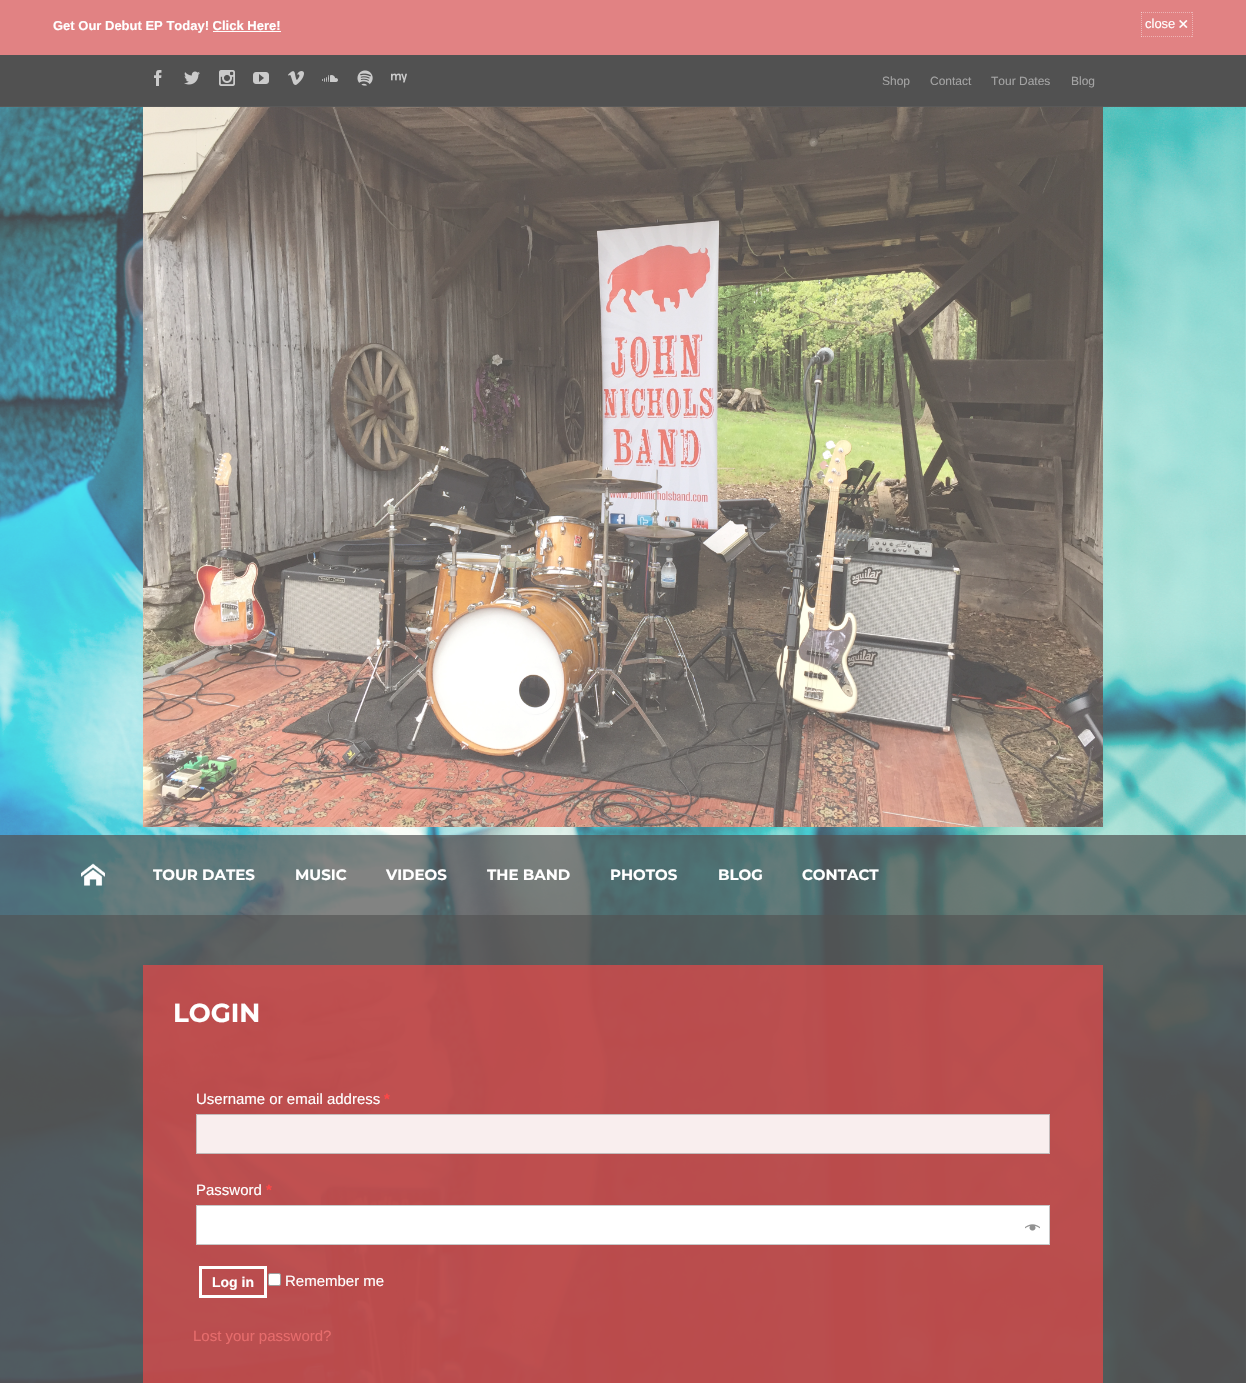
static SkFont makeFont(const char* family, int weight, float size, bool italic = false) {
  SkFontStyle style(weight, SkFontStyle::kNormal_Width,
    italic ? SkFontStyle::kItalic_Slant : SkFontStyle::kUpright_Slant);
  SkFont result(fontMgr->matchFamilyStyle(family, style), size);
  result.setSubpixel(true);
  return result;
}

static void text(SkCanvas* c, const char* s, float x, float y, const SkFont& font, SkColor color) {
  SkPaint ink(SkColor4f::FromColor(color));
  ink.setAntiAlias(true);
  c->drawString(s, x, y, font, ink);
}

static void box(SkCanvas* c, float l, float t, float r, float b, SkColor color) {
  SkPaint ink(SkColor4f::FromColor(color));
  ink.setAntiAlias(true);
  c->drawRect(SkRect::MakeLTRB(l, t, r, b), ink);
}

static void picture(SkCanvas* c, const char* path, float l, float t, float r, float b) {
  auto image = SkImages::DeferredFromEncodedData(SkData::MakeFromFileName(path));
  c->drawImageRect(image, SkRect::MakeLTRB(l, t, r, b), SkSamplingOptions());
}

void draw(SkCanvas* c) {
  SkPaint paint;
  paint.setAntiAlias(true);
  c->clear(0xffffffff);
  picture(c, "img_01.png", 0, 107, 1246, 1383);
  box(c, 0, 0, 1246, 55, 0xffe18283);
  SkFont face1 = makeFont("Liberation Sans", 700, 13);
  text(c, "Get Our Debut EP Today! Click Here!", 53, 30, face1, 0xffffffff);
  box(c, 213, 31, 281, 32, 0xffffffff);
  paint.setStyle(SkPaint::kStroke_Style);
  paint.setStrokeWidth(1);
  paint.setColor(0xffedb4b5);
  paint.setPathEffect(SkDashPathEffect::Make({{1, 1}}, 0));
  c->drawPath(SkPathBuilder().moveTo(1141, 12.5f).lineTo(1193, 12.5f).moveTo(1192.5f, 12).lineTo(1192.5f, 37).moveTo(1141, 36.5f).lineTo(1193, 36.5f).detach(), paint);
  paint.setPathEffect(nullptr);
  paint.setColor(0x66ffffff);
  paint.setPathEffect(SkDashPathEffect::Make({{1, 1}}, 0));
  c->drawPath(SkPathBuilder().moveTo(1141.5f, 12).lineTo(1141.5f, 37).detach(), paint);
  paint.setPathEffect(nullptr);
  SkFont face2 = makeFont("Liberation Sans", 400, 13);
  text(c, "close", 1145, 28, face2, 0xffffffff);
  SkFont face3 = makeFont("Liberation Sans", 400, 18);
  text(c, "×", 1178, 30, face3, 0xffffffff);
  box(c, 0, 55, 1246, 106, 0xff515151);
  box(c, 0, 106, 1246, 107, 0xff595959);
  picture(c, "img_02.png", 154, 70, 162, 86);
  picture(c, "img_03.png", 184, 71, 200, 85);
  picture(c, "img_04.png", 219, 70, 235, 86);
  picture(c, "img_05.png", 253, 72, 269, 84);
  picture(c, "img_06.png", 288, 71, 304, 85);
  picture(c, "img_07.png", 322, 75, 338, 82);
  picture(c, "img_08.png", 357, 70, 373, 86);
  picture(c, "img_09.png", 391, 73, 407, 83);
  SkFont face4 = makeFont("Liberation Sans", 400, 12);
  text(c, "Shop", 882, 85, face4, 0xffa4a4a4);
  text(c, "Contact", 930, 85, face4, 0xffa4a4a4);
  text(c, "Tour Dates", 991, 85, face4, 0xffa4a4a4);
  text(c, "Blog", 1071, 85, face4, 0xffa4a4a4);
  picture(c, "img_10.png", 143, 107, 1103, 827);
  box(c, 0, 835, 1246, 915, 0xb3505050);
  picture(c, "img_11.png", 81, 863, 105, 886);
  SkFont face5 = makeFont("Montserrat", 700, 15);
  text(c, "TOUR DATES", 153, 880, face5, 0xffffffff);
  text(c, "MUSIC", 295, 880, face5, 0xffffffff);
  text(c, "VIDEOS", 386, 880, face5, 0xffffffff);
  text(c, "THE BAND", 487, 880, face5, 0xffffffff);
  text(c, "PHOTOS", 610, 880, face5, 0xffffffff);
  text(c, "BLOG", 718, 880, face5, 0xffffffff);
  text(c, "CONTACT", 802, 880, face5, 0xffffffff);
  box(c, 0, 915, 1246, 1383, 0xe3515151);
  box(c, 143, 965, 1103, 1383, 0xb3e74747);
  SkFont face6 = makeFont("Montserrat", 700, 26);
  text(c, "LOGIN", 173, 1022, face6, 0xffffffff);
  SkFont face7 = makeFont("Liberation Sans", 400, 15);
  text(c, "Username or email address", 196, 1104, face7, 0xffffffff);
  SkFont face8 = makeFont("Liberation Sans", 700, 15);
  text(c, "*", 384, 1104, face8, 0xffff4747);
  paint.setStyle(SkPaint::kFill_Style);
  paint.setColor(0xe6ffffff);
  c->drawRect(SkRect::MakeLTRB(196.5f, 1114.5f, 1049.5f, 1153.5f), paint);
  paint.setStyle(SkPaint::kStroke_Style);
  paint.setColor(0xffc3bbbb);
  c->drawRect(SkRect::MakeLTRB(196.5f, 1114.5f, 1049.5f, 1153.5f), paint);
  text(c, "Password", 196, 1195, face7, 0xffffffff);
  text(c, "*", 266, 1195, face8, 0xffff4747);
  paint.setStyle(SkPaint::kFill_Style);
  paint.setColor(0xffffffff);
  c->drawRect(SkRect::MakeLTRB(196.5f, 1205.5f, 1049.5f, 1244.5f), paint);
  paint.setStyle(SkPaint::kStroke_Style);
  paint.setColor(0xffc8c8c8);
  c->drawRect(SkRect::MakeLTRB(196.5f, 1205.5f, 1049.5f, 1244.5f), paint);
  picture(c, "img_12.png", 1025, 1224, 1040, 1231);
  paint.setStrokeWidth(3);
  paint.setColor(0xffffffff);
  c->drawRect(SkRect::MakeLTRB(200.5f, 1267.5f, 265.5f, 1296.5f), paint);
  SkFont face9 = makeFont("Liberation Sans", 700, 14);
  text(c, "Log in", 212, 1287, face9, 0xffffffff);
  paint.setStyle(SkPaint::kFill_Style);
  c->drawRoundRect(SkRect::MakeLTRB(268.5f, 1273.5f, 280.5f, 1285.5f), 1.5f, 1.5f, paint);
  paint.setStyle(SkPaint::kStroke_Style);
  paint.setStrokeWidth(1);
  paint.setColor(0xff9c9c9c);
  c->drawRoundRect(SkRect::MakeLTRB(268.5f, 1273.5f, 280.5f, 1285.5f), 1.5f, 1.5f, paint);
  text(c, "Remember me", 285, 1286, face7, 0xffffffff);
  text(c, "Lost your password?", 193, 1341, face7, 0xffe76c6c);
}
